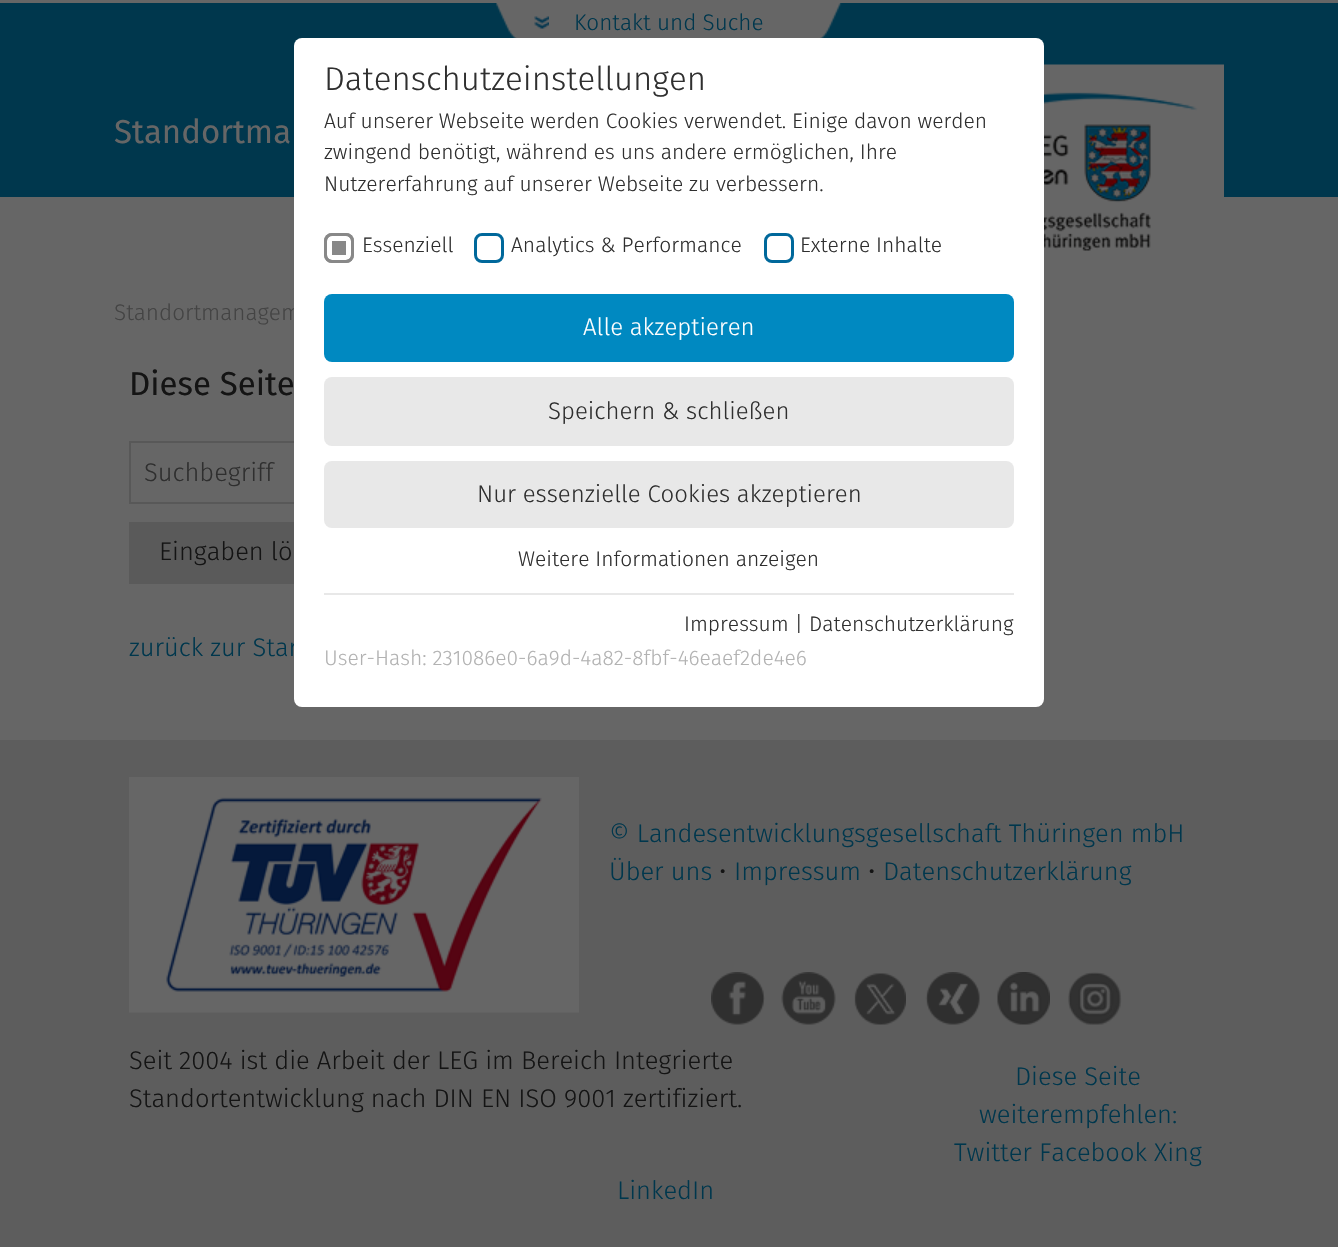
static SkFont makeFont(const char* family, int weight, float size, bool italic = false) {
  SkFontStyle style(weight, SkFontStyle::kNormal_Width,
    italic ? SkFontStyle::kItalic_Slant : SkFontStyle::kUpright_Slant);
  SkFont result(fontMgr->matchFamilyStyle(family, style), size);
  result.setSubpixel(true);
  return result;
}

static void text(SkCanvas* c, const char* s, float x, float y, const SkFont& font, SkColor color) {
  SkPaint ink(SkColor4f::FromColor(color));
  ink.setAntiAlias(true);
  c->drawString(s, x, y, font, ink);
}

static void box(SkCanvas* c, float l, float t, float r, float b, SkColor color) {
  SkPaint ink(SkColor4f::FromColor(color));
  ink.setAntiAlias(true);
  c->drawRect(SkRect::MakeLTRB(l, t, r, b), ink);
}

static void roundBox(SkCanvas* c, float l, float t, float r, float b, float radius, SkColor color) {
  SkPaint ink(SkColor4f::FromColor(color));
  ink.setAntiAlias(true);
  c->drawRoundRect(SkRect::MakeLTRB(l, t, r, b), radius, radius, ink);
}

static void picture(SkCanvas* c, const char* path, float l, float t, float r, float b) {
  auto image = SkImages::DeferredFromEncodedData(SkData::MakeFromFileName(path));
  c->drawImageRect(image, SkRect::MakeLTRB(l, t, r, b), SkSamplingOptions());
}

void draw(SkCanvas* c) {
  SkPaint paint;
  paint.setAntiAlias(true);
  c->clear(0xff666666);
  box(c, 0, 3, 1338, 197, 0xff00374d);
  picture(c, "img_01.png", 496, 3, 842, 38);
  picture(c, "img_02.png", 534, 16, 549, 29);
  SkFont face1 = makeFont("Fira Sans", 300, 22.5f);
  text(c, "Kontakt und Suche", 574, 30, face1, 0xff00374d);
  SkFont face2 = makeFont("Fira Sans", 400, 33);
  text(c, "Standortma", 114, 143, face2, 0xff666666);
  picture(c, "img_03.png", 1044, 64, 1224, 251);
  text(c, "Standortmanagem", 114, 320, face1, 0xff444444);
  text(c, "Diese Seite", 129, 395, face2, 0xff141414);
  paint.setStyle(SkPaint::kStroke_Style);
  paint.setStrokeWidth(2);
  paint.setColor(0xff585858);
  c->drawRect(SkRect::MakeLTRB(130, 442, 458, 503), paint);
  SkFont face3 = makeFont("Fira Sans", 300, 25.5f);
  text(c, "Suchbegriff", 144, 481, face3, 0xff2f2f2f);
  box(c, 129, 522, 294, 584, 0xff5a5a5a);
  text(c, "Eingaben lö", 159, 560, face3, 0xff141414);
  text(c, "zurück zur Star", 129, 656, face3, 0xff00374d);
  box(c, 0, 740, 1338, 1247, 0xff5d5d5d);
  text(c, "© Landesentwicklungsgesellschaft Thüringen mbH", 609, 842, face3, 0xff00374d);
  text(c, "Über uns", 609, 880, face3, 0xff00374d);
  text(c, "•", 719, 880, face3, 0xff141414);
  text(c, "Impressum", 734, 880, face3, 0xff00374d);
  text(c, "•", 868, 880, face3, 0xff141414);
  text(c, "Datenschutzerklärung", 883, 880, face3, 0xff00374d);
  picture(c, "img_04.png", 129, 777, 579, 1013);
  text(c, "Seit 2004 ist die Arbeit der LEG im Bereich Integrierte", 129, 1069, face3, 0xff141414);
  text(c, "Standortentwicklung nach DIN EN ISO 9001 zertifiziert.", 129, 1107, face3, 0xff141414);
  picture(c, "img_05.png", 711, 972, 765, 1025);
  picture(c, "img_06.png", 781, 972, 836, 1025);
  picture(c, "img_07.png", 854, 973, 906, 1025);
  picture(c, "img_08.png", 925, 972, 980, 1025);
  picture(c, "img_09.png", 997, 972, 1050, 1025);
  picture(c, "img_10.png", 1068, 972, 1122, 1025);
  text(c, "Diese Seite", 1015, 1085, face3, 0xff00374d);
  text(c, "weiterempfehlen:", 979, 1123, face3, 0xff00374d);
  text(c, "Twitter Facebook Xing", 954, 1161, face3, 0xff00374d);
  text(c, "LinkedIn", 617, 1199, face3, 0xff00374d);
  roundBox(c, 294, 38, 1044, 707, 8, 0xffffffff);
  SkFont face4 = makeFont("Fira Sans", 300, 33);
  text(c, "Datenschutzeinstellungen", 324, 90, face4, 0xff2f2f2f);
  SkFont face5 = makeFont("Fira Sans", 300, 21);
  text(c, "Auf unserer Webseite werden Cookies verwendet. Einige davon werden", 324, 128, face5, 0xff2f2f2f);
  text(c, "zwingend benötigt, während es uns andere ermöglichen, Ihre", 324, 159, face5, 0xff2f2f2f);
  text(c, "Nutzererfahrung auf unserer Webseite zu verbessern.", 324, 191, face5, 0xff2f2f2f);
  roundBox(c, 324, 233, 354, 263, 8, 0xff888888);
  paint.setStrokeWidth(5);
  paint.setColor(0xffffffff);
  c->drawRoundRect(SkRect::MakeLTRB(329.5f, 238.5f, 348.5f, 257.5f), 2.5f, 2.5f, paint);
  paint.setStrokeWidth(3);
  paint.setColor(0xff888888);
  c->drawRoundRect(SkRect::MakeLTRB(325.5f, 234.5f, 352.5f, 261.5f), 6.5f, 6.5f, paint);
  text(c, "Essenziell", 362, 252, face5, 0xff2f2f2f);
  paint.setColor(0xff00689b);
  c->drawRoundRect(SkRect::MakeLTRB(475.5f, 234.5f, 502.5f, 261.5f), 6.5f, 6.5f, paint);
  text(c, "Analytics & Performance", 511, 252, face5, 0xff2f2f2f);
  c->drawRoundRect(SkRect::MakeLTRB(765.5f, 234.5f, 792.5f, 261.5f), 6.5f, 6.5f, paint);
  text(c, "Externe Inhalte", 800, 252, face5, 0xff2f2f2f);
  roundBox(c, 324, 294, 1014, 362, 8, 0xff0089c1);
  SkFont face6 = makeFont("Fira Sans", 300, 24);
  text(c, "Alle akzeptieren", 583, 335, face6, 0xffffffff);
  roundBox(c, 324, 377, 1014, 446, 8, 0xffe8e8e8);
  text(c, "Speichern & schließen", 548, 419, face6, 0xff2f2f2f);
  roundBox(c, 324, 461, 1014, 528, 8, 0xffe8e8e8);
  text(c, "Nur essenzielle Cookies akzeptieren", 477, 502, face6, 0xff2f2f2f);
  text(c, "Weitere Informationen anzeigen", 518, 566, face5, 0xff2f2f2f);
  box(c, 324, 593, 1014, 595, 0xffe8e8e8);
  text(c, "Impressum | Datenschutzerklärung", 684, 631, face5, 0xff2f2f2f);
  text(c, "User-Hash: 231086e0-6a9d-4a82-8fbf-46eaef2de4e6", 324, 665, face5, 0xffb2b2b2);
}
